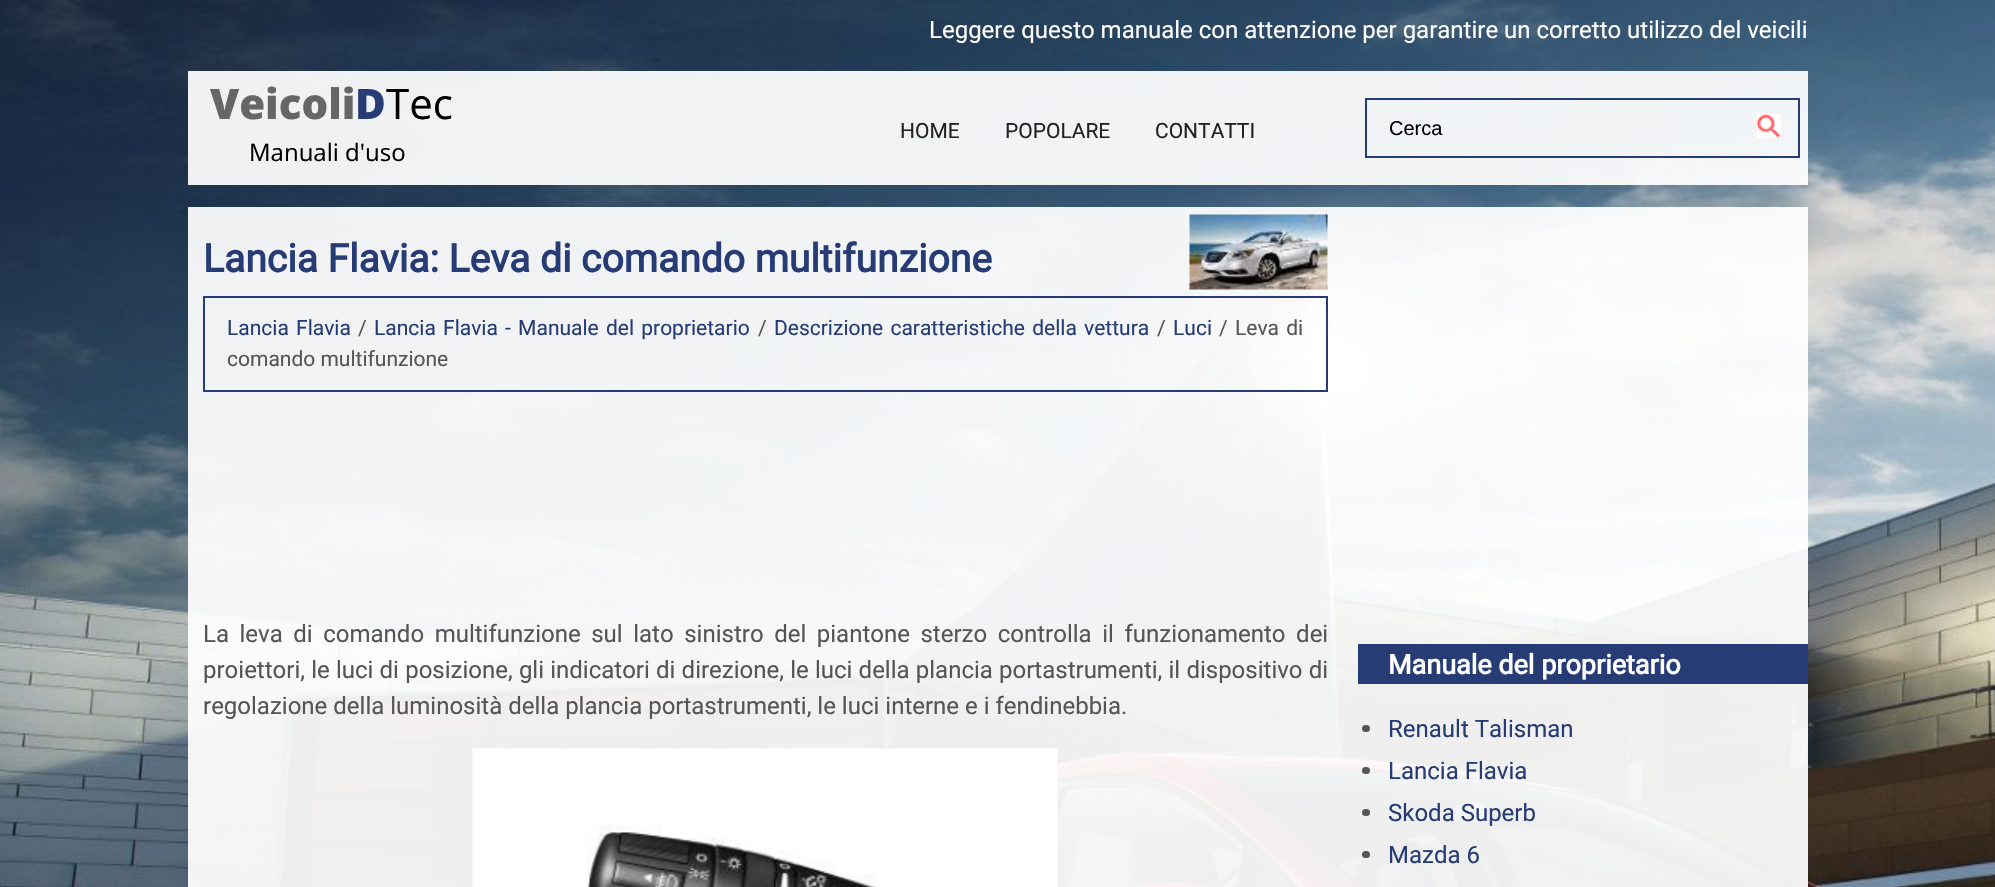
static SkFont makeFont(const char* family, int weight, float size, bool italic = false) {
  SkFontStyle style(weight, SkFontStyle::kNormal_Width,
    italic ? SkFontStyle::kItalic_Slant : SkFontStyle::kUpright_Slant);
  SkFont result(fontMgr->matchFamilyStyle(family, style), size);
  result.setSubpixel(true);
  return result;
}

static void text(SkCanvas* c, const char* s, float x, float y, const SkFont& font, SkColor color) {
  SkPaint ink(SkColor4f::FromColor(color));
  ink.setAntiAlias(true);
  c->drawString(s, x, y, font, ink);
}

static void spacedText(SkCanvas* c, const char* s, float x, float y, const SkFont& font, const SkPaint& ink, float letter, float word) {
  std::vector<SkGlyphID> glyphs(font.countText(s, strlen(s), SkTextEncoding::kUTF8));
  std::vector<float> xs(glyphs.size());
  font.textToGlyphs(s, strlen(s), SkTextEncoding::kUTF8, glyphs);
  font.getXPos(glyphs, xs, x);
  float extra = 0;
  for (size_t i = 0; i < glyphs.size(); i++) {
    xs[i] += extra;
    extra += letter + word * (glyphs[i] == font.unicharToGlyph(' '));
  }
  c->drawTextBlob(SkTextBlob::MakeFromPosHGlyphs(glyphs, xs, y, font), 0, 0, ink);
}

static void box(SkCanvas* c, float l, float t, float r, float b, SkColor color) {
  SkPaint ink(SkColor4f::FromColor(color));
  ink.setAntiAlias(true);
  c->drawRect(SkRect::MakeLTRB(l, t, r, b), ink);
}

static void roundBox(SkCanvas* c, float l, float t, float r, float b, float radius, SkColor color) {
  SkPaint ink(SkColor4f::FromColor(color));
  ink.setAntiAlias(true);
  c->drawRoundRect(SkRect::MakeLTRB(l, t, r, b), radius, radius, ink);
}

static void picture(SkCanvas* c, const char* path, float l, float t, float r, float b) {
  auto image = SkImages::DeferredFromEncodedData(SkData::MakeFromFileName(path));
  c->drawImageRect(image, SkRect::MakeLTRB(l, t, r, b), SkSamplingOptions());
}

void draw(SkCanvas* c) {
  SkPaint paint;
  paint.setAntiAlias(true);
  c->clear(0xffffffff);
  picture(c, "img_01.png", 0, 0, 1995, 887);
  SkFont face1 = makeFont("Roboto", 400, 24);
  text(c, "Leggere questo manuale con attenzione per garantire un corretto utilizzo del veicili", 929, 38, face1, 0xffffffff);
  box(c, 188, 71, 1808, 185, 0xedffffff);
  SkFont face2 = makeFont("Open Sans", 800, 42);
  text(c, "Veicoli", 210, 119, face2, 0xff666666);
  text(c, "D", 355, 119, face2, 0xff273b75);
  SkFont face3 = makeFont("Open Sans", 400, 42);
  text(c, "Tec", 386, 119, face3, 0xff000000);
  SkFont face4 = makeFont("Open Sans", 400, 24);
  text(c, "Manuali d'uso", 249, 161, face4, 0xff000000);
  SkFont face5 = makeFont("Roboto", 400, 21);
  text(c, "HOME", 900, 138, face5, 0xff222222);
  text(c, "POPOLARE", 1005, 138, face5, 0xff222222);
  text(c, "CONTATTI", 1155, 138, face5, 0xff222222);
  paint.setStyle(SkPaint::kStroke_Style);
  paint.setStrokeWidth(2);
  paint.setColor(0xff273b75);
  c->drawRect(SkRect::MakeLTRB(1366, 99, 1799, 157), paint);
  SkFont face6 = makeFont("Liberation Sans", 400, 20);
  text(c, "Cerca", 1389, 135, face6, 0xff000000);
  picture(c, "img_02.png", 1756, 114, 1781, 138);
  box(c, 188, 207, 1808, 887, 0xedffffff);
  SkFont face7 = makeFont("Roboto", 700, 39);
  text(c, "Lancia Flavia: Leva di comando multifunzione", 203, 272, face7, 0xff273b75);
  picture(c, "img_03.png", 1189, 214, 1328, 290);
  c->drawRect(SkRect::MakeLTRB(204, 297, 1327, 391), paint);
  paint.setStyle(SkPaint::kFill_Style);
  spacedText(c, "Lancia Flavia", 227, 335, face5, paint, 0, 2);
  text(c, "/", 358, 335, face5, 0xff555555);
  spacedText(c, "Lancia Flavia - Manuale del proprietario", 374, 335, face5, paint, 0, 2);
  text(c, "/", 758, 335, face5, 0xff555555);
  spacedText(c, "Descrizione caratteristiche della vettura", 774, 335, face5, paint, 0, 2);
  text(c, "/", 1157, 335, face5, 0xff555555);
  text(c, "Luci", 1173, 335, face5, 0xff273b75);
  text(c, "/", 1219, 335, face5, 0xff555555);
  paint.setColor(0xff555555);
  spacedText(c, "Leva di", 1235, 335, face5, paint, 0, 2);
  text(c, "comando multifunzione", 227, 366, face5, 0xff555555);
  spacedText(c, "La leva di comando multifunzione sul lato sinistro del piantone sterzo controlla il funzionamento dei", 203, 642, face1, paint, 0, 4.6f);
  spacedText(c, "proiettori, le luci di posizione, gli indicatori di direzione, le luci della plancia portastrumenti, il dispositivo di", 203, 678, face1, paint, 0, 0.25f);
  text(c, "regolazione della luminosità della plancia portastrumenti, le luci interne e i fendinebbia.", 203, 714, face1, 0xff555555);
  picture(c, "img_04.png", 472, 748, 1058, 887);
  box(c, 1358, 644, 1808, 684, 0xff273b75);
  SkFont face8 = makeFont("Roboto", 700, 27);
  text(c, "Manuale del proprietario", 1388, 674, face8, 0xffffffff);
  roundBox(c, 1362, 725, 1370, 732, 3.5f, 0xff555555);
  text(c, "Renault Talisman", 1388, 737, face1, 0xff273b75);
  roundBox(c, 1362, 767, 1370, 774, 3.5f, 0xff555555);
  text(c, "Lancia Flavia", 1388, 779, face1, 0xff273b75);
  roundBox(c, 1362, 809, 1370, 816, 3.5f, 0xff555555);
  text(c, "Skoda Superb", 1388, 821, face1, 0xff273b75);
  roundBox(c, 1362, 851, 1370, 858, 3.5f, 0xff555555);
  text(c, "Mazda 6", 1388, 863, face1, 0xff273b75);
}
